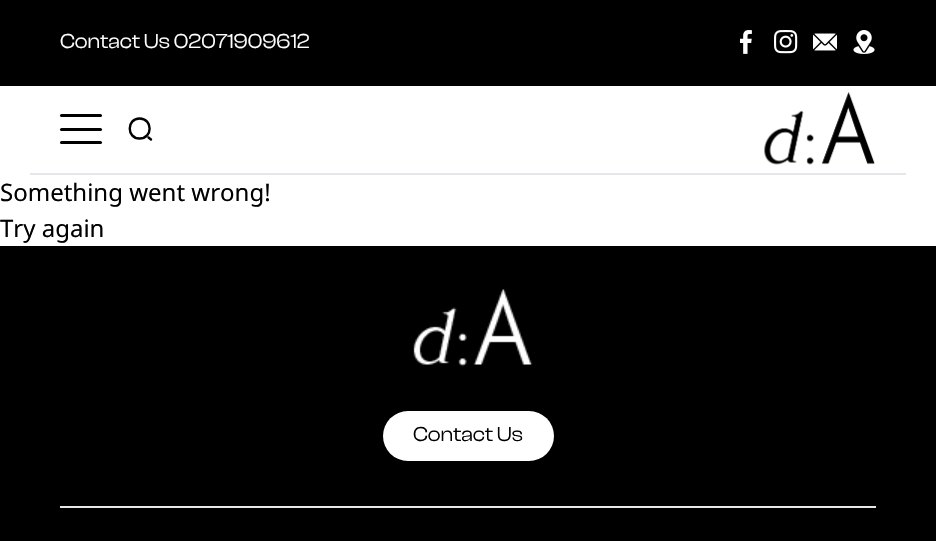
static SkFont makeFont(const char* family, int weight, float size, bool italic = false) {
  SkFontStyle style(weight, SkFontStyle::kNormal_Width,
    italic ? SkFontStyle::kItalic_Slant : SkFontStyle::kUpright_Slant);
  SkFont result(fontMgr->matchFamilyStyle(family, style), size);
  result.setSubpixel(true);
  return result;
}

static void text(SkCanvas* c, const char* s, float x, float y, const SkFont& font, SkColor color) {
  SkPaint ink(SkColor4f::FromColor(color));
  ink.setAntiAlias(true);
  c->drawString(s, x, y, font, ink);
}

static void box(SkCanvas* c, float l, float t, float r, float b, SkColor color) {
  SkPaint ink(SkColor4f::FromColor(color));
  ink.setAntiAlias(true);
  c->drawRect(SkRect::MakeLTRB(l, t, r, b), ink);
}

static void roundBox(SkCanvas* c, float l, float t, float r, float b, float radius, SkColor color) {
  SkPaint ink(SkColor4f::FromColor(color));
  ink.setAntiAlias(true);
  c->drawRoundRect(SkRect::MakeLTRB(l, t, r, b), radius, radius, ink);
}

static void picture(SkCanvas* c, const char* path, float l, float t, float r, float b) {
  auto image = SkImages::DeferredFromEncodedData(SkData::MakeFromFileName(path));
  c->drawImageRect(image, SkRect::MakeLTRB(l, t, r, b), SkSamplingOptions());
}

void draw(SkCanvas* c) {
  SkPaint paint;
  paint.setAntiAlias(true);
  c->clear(0xffffffff);
  box(c, 0, 0, 936, 86, 0xff000000);
  SkFont face1 = makeFont("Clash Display", 400, 21);
  text(c, "Contact Us 02071909612", 60, 48, face1, 0xffffffff);
  picture(c, "img_01.png", 740, 30, 752, 54);
  picture(c, "img_02.png", 774, 30, 798, 54);
  picture(c, "img_03.png", 813, 33, 837, 51);
  picture(c, "img_04.png", 853, 30, 875, 54);
  roundBox(c, 60, 114, 102, 117, 1.5f, 0xff000000);
  roundBox(c, 60, 128, 102, 131, 1.5f, 0xff000000);
  roundBox(c, 60, 141, 102, 144, 1.5f, 0xff000000);
  paint.setStyle(SkPaint::kStroke_Style);
  paint.setStrokeWidth(2.4f);
  paint.setStrokeCap(SkPaint::kRound_Cap);
  paint.setStrokeJoin(SkPaint::kRound_Join);
  paint.setColor(0xff000000);
  c->drawPath(SkPathBuilder().moveTo(139.5f, 138.5f).cubicTo(153, 138.5f, 153, 118.5f, 139.5f, 118.5f).cubicTo(126.5f, 118.5f, 126.5f, 138.5f, 139.5f, 138.5f).close().moveTo(151, 139.5f).lineTo(148.5f, 137.5f).detach(), paint);
  picture(c, "img_05.png", 764, 92, 875, 165);
  box(c, 30, 173, 906, 175, 0xffe5e7eb);
  SkFont face2 = makeFont("Noto Sans", 400, 24);
  text(c, "Something went wrong!", 0, 201, face2, 0xff000000);
  text(c, "Try again", 0, 237, face2, 0xff000000);
  box(c, 0, 246, 936, 541, 0xff000000);
  picture(c, "img_06.png", 413, 289, 533, 367);
  roundBox(c, 383, 411, 554, 461, 25, 0xffffffff);
  text(c, "Contact Us", 413, 441, face1, 0xff000000);
  box(c, 60, 506, 876, 508, 0xffe5e7eb);
}
